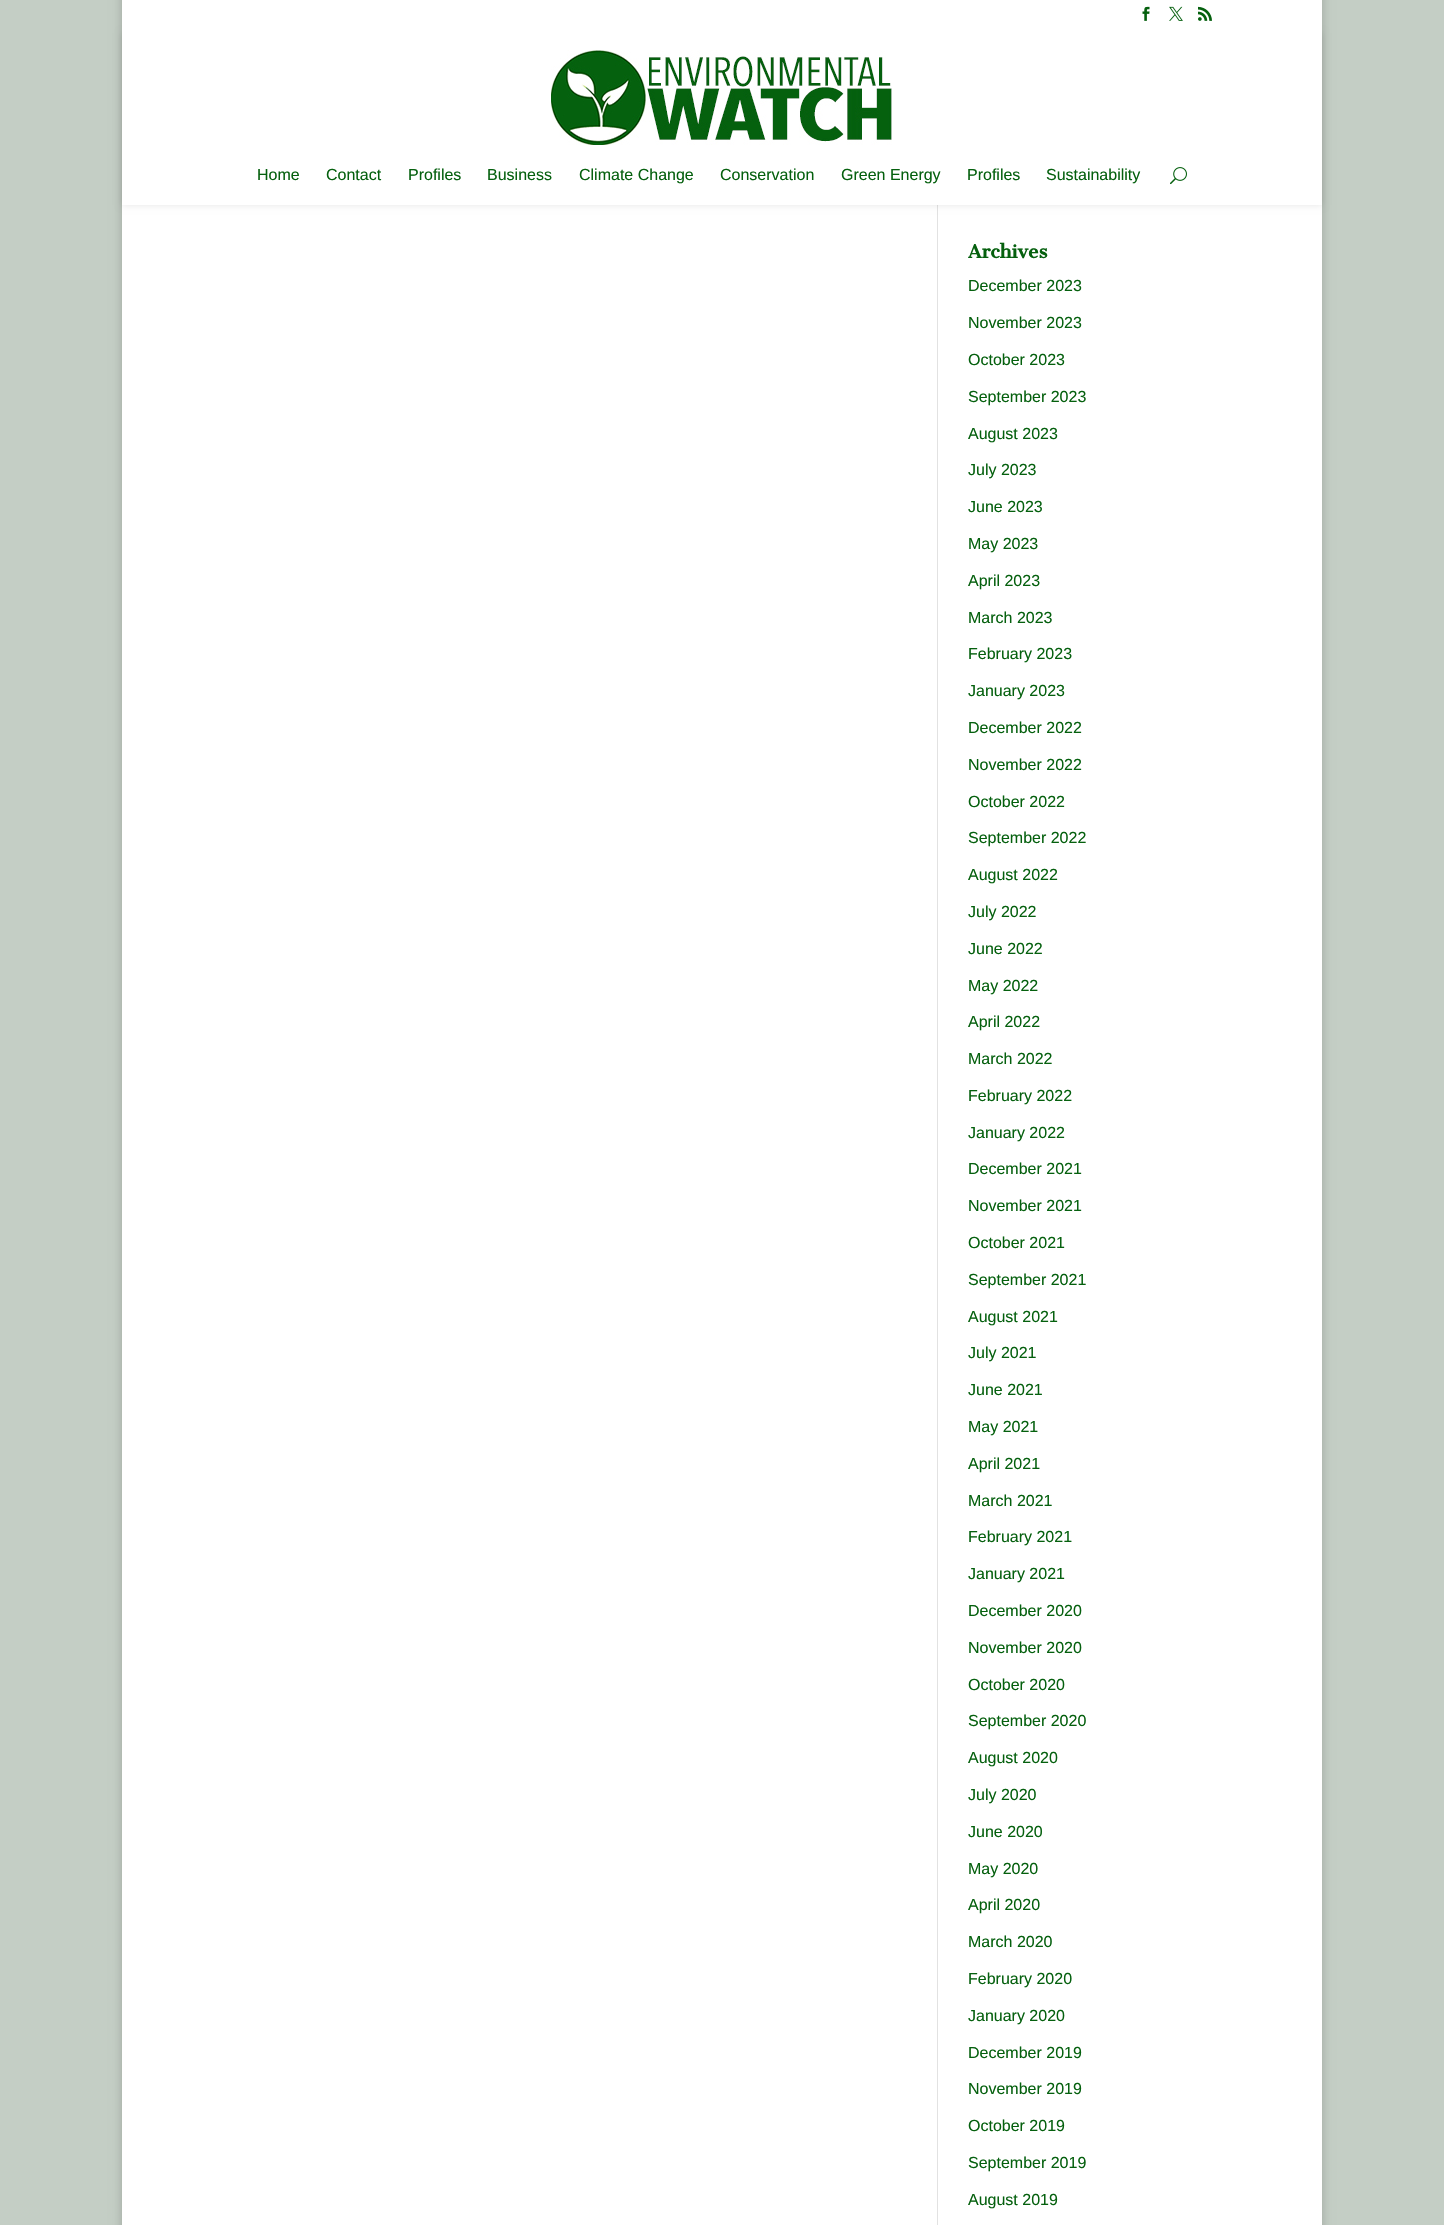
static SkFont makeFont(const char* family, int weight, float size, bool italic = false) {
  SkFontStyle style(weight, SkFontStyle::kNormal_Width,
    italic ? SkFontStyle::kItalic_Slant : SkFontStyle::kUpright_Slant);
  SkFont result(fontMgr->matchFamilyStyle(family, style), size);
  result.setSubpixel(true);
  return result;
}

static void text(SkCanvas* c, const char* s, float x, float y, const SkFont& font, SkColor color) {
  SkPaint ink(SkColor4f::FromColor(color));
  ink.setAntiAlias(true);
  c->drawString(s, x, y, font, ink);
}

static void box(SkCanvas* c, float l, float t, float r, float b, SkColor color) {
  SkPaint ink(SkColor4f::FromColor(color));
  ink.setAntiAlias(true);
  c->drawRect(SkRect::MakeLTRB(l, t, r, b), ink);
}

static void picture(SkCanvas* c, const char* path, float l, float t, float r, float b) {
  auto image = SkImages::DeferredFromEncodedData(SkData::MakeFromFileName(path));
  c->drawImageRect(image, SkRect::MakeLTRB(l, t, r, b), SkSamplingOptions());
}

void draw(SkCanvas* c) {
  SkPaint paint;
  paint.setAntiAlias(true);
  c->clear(0xffc4cec5);
  paint.setColor(0x33000000);
  paint.setMaskFilter(SkMaskFilter::MakeBlur(kNormal_SkBlurStyle, 5));
  c->drawRect(SkRect::MakeLTRB(122, -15, 1322, 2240), paint);
  paint.setMaskFilter(nullptr);
  box(c, 122, 205, 1322, 2225, 0xffffffff);
  box(c, 937, 205, 938, 2225, 0xffe2e2e2);
  paint.setColor(0x1a000000);
  paint.setMaskFilter(SkMaskFilter::MakeBlur(kNormal_SkBlurStyle, 3.5f));
  c->drawRect(SkRect::MakeLTRB(122, 33, 1322, 205), paint);
  paint.setMaskFilter(nullptr);
  box(c, 122, 0, 1322, 205, 0xffffffff);
  picture(c, "img_01.png", 1142, 6, 1150, 21);
  picture(c, "img_02.png", 1169, 6, 1183, 21);
  picture(c, "img_03.png", 1198, 6, 1212, 21);
  picture(c, "img_04.png", 551, 50, 892, 145);
  SkFont face1 = makeFont("Arimo", 400, 16);
  text(c, "Home", 257, 180, face1, 0xff05600e);
  text(c, "Contact", 326, 180, face1, 0xff05600e);
  text(c, "Profiles", 408, 180, face1, 0xff05600e);
  text(c, "Business", 487, 180, face1, 0xff05600e);
  text(c, "Climate Change", 579, 180, face1, 0xff05600e);
  text(c, "Conservation", 720, 180, face1, 0xff05600e);
  text(c, "Green Energy", 841, 180, face1, 0xff05600e);
  text(c, "Profiles", 967, 180, face1, 0xff05600e);
  text(c, "Sustainability", 1046, 180, face1, 0xff05600e);
  picture(c, "img_05.png", 1170, 167, 1187, 185);
  SkFont face2 = makeFont("Cantata One", 700, 18);
  text(c, "Archives", 968, 258, face2, 0xff05600e);
  text(c, "December 2023", 968, 291, face1, 0xff05600e);
  text(c, "November 2023", 968, 328, face1, 0xff05600e);
  text(c, "October 2023", 968, 365, face1, 0xff05600e);
  text(c, "September 2023", 968, 402, face1, 0xff05600e);
  text(c, "August 2023", 968, 439, face1, 0xff05600e);
  text(c, "July 2023", 968, 475, face1, 0xff05600e);
  text(c, "June 2023", 968, 512, face1, 0xff05600e);
  text(c, "May 2023", 968, 549, face1, 0xff05600e);
  text(c, "April 2023", 968, 586, face1, 0xff05600e);
  text(c, "March 2023", 968, 623, face1, 0xff05600e);
  text(c, "February 2023", 968, 659, face1, 0xff05600e);
  text(c, "January 2023", 968, 696, face1, 0xff05600e);
  text(c, "December 2022", 968, 733, face1, 0xff05600e);
  text(c, "November 2022", 968, 770, face1, 0xff05600e);
  text(c, "October 2022", 968, 807, face1, 0xff05600e);
  text(c, "September 2022", 968, 843, face1, 0xff05600e);
  text(c, "August 2022", 968, 880, face1, 0xff05600e);
  text(c, "July 2022", 968, 917, face1, 0xff05600e);
  text(c, "June 2022", 968, 954, face1, 0xff05600e);
  text(c, "May 2022", 968, 991, face1, 0xff05600e);
  text(c, "April 2022", 968, 1027, face1, 0xff05600e);
  text(c, "March 2022", 968, 1064, face1, 0xff05600e);
  text(c, "February 2022", 968, 1101, face1, 0xff05600e);
  text(c, "January 2022", 968, 1138, face1, 0xff05600e);
  text(c, "December 2021", 968, 1174, face1, 0xff05600e);
  text(c, "November 2021", 968, 1211, face1, 0xff05600e);
  text(c, "October 2021", 968, 1248, face1, 0xff05600e);
  text(c, "September 2021", 968, 1285, face1, 0xff05600e);
  text(c, "August 2021", 968, 1322, face1, 0xff05600e);
  text(c, "July 2021", 968, 1358, face1, 0xff05600e);
  text(c, "June 2021", 968, 1395, face1, 0xff05600e);
  text(c, "May 2021", 968, 1432, face1, 0xff05600e);
  text(c, "April 2021", 968, 1469, face1, 0xff05600e);
  text(c, "March 2021", 968, 1506, face1, 0xff05600e);
  text(c, "February 2021", 968, 1542, face1, 0xff05600e);
  text(c, "January 2021", 968, 1579, face1, 0xff05600e);
  text(c, "December 2020", 968, 1616, face1, 0xff05600e);
  text(c, "November 2020", 968, 1653, face1, 0xff05600e);
  text(c, "October 2020", 968, 1690, face1, 0xff05600e);
  text(c, "September 2020", 968, 1726, face1, 0xff05600e);
  text(c, "August 2020", 968, 1763, face1, 0xff05600e);
  text(c, "July 2020", 968, 1800, face1, 0xff05600e);
  text(c, "June 2020", 968, 1837, face1, 0xff05600e);
  text(c, "May 2020", 968, 1874, face1, 0xff05600e);
  text(c, "April 2020", 968, 1910, face1, 0xff05600e);
  text(c, "March 2020", 968, 1947, face1, 0xff05600e);
  text(c, "February 2020", 968, 1984, face1, 0xff05600e);
  text(c, "January 2020", 968, 2021, face1, 0xff05600e);
  text(c, "December 2019", 968, 2058, face1, 0xff05600e);
  text(c, "November 2019", 968, 2094, face1, 0xff05600e);
  text(c, "October 2019", 968, 2131, face1, 0xff05600e);
  text(c, "September 2019", 968, 2168, face1, 0xff05600e);
  text(c, "August 2019", 968, 2205, face1, 0xff05600e);
}
